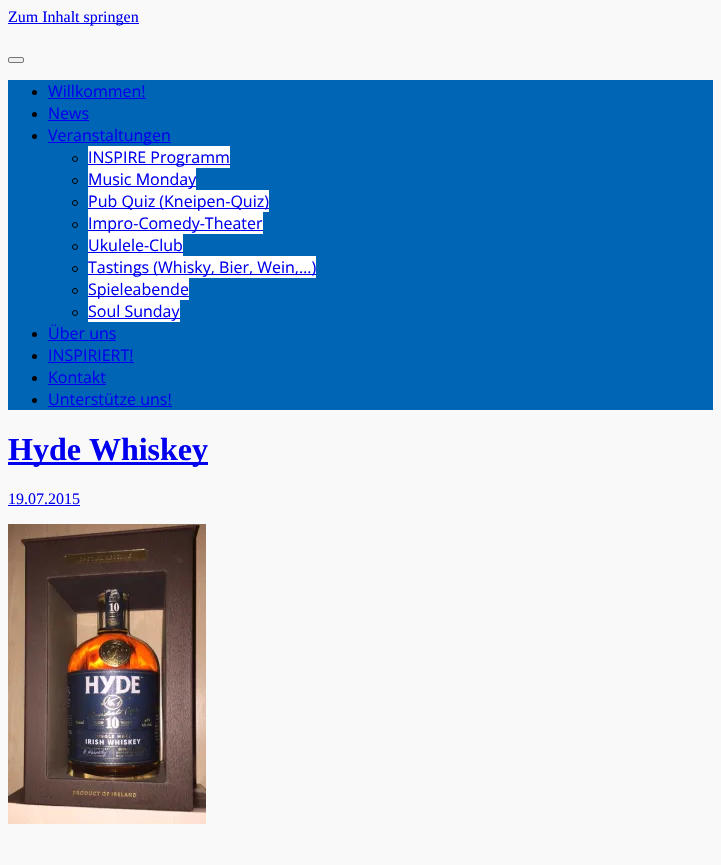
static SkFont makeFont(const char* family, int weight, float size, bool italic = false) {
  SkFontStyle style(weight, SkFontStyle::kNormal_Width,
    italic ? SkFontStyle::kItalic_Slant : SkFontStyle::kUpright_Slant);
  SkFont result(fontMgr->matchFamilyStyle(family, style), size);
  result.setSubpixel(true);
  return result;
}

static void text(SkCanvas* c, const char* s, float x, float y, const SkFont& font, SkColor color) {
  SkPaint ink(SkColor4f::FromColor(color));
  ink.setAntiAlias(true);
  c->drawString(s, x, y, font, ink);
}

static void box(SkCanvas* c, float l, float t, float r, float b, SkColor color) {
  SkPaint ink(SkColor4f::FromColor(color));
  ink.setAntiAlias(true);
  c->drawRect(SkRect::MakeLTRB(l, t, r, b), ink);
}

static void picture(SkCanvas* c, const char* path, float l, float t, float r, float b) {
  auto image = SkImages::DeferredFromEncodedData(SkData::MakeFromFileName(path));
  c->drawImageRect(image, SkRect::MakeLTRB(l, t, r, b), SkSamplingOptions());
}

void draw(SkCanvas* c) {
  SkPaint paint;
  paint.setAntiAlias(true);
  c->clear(0xfff9f9f9);
  box(c, 8, 23, 139, 24, 0xff0000ee);
  SkFont face1 = makeFont("Liberation Serif", 400, 16);
  text(c, "Zum Inhalt springen", 8, 22, face1, 0xff0000ee);
  paint.setColor(0xffefefef);
  c->drawRoundRect(SkRect::MakeLTRB(8.5f, 57.5f, 23.5f, 62.5f), 1.5f, 1.5f, paint);
  paint.setStyle(SkPaint::kStroke_Style);
  paint.setStrokeWidth(1);
  paint.setColor(0xff767676);
  c->drawRoundRect(SkRect::MakeLTRB(8.5f, 57.5f, 23.5f, 62.5f), 1.5f, 1.5f, paint);
  box(c, 8, 80, 713, 410, 0xff0065b4);
  paint.setStyle(SkPaint::kFill_Style);
  paint.setColor(0xff000000);
  c->drawCircle(34.5f, 92.5f, 2.5f, paint);
  SkFont face2 = makeFont("Open Sans", 400, 16);
  text(c, "Willkommen!", 48, 97, face2, 0xff0000ee);
  box(c, 48, 98, 146, 99, 0xff0000ee);
  c->drawCircle(34.5f, 114.5f, 2.5f, paint);
  text(c, "News", 48, 119, face2, 0xff0000ee);
  box(c, 48, 120, 89, 121, 0xff0000ee);
  c->drawCircle(34.5f, 136.5f, 2.5f, paint);
  box(c, 48, 142, 171, 143, 0xff0000ee);
  text(c, "Veranstaltungen", 48, 141, face2, 0xff0000ee);
  paint.setStyle(SkPaint::kStroke_Style);
  c->drawCircle(75, 159, 2.5f, paint);
  box(c, 88, 146, 230, 168, 0xffffffff);
  box(c, 88, 164, 230, 165, 0xff0000ee);
  text(c, "INSPIRE Programm", 88, 163, face2, 0xff0000ee);
  c->drawCircle(75, 181, 2.5f, paint);
  box(c, 88, 168, 196, 190, 0xffffffff);
  box(c, 88, 186, 196, 187, 0xff0000ee);
  text(c, "Music Monday", 88, 185, face2, 0xff0000ee);
  c->drawCircle(75, 203, 2.5f, paint);
  box(c, 88, 190, 269, 212, 0xffffffff);
  box(c, 88, 208, 269, 209, 0xff0000ee);
  text(c, "Pub Quiz (Kneipen-Quiz)", 88, 207, face2, 0xff0000ee);
  c->drawCircle(75, 225, 2.5f, paint);
  box(c, 88, 212, 263, 234, 0xffffffff);
  box(c, 88, 230, 263, 231, 0xff0000ee);
  text(c, "Impro-Comedy-Theater", 88, 229, face2, 0xff0000ee);
  c->drawCircle(75, 247, 2.5f, paint);
  box(c, 88, 234, 183, 256, 0xffffffff);
  text(c, "Ukulele-Club", 88, 251, face2, 0xff0000ee);
  box(c, 88, 252, 183, 253, 0xff0000ee);
  c->drawCircle(75, 269, 2.5f, paint);
  box(c, 88, 256, 316, 278, 0xffffffff);
  box(c, 88, 274, 316, 275, 0xff0000ee);
  text(c, "Tastings (Whisky, Bier, Wein,…)", 88, 273, face2, 0xff0000ee);
  c->drawCircle(75, 291, 2.5f, paint);
  box(c, 88, 278, 189, 300, 0xffffffff);
  box(c, 88, 296, 189, 297, 0xff0000ee);
  text(c, "Spieleabende", 88, 295, face2, 0xff0000ee);
  c->drawCircle(75, 313, 2.5f, paint);
  box(c, 88, 300, 180, 322, 0xffffffff);
  box(c, 88, 318, 180, 319, 0xff0000ee);
  text(c, "Soul Sunday", 88, 317, face2, 0xff0000ee);
  paint.setStyle(SkPaint::kFill_Style);
  c->drawCircle(34.5f, 334.5f, 2.5f, paint);
  text(c, "Über uns", 48, 339, face2, 0xff0000ee);
  box(c, 48, 340, 116, 341, 0xff0000ee);
  c->drawCircle(34.5f, 356.5f, 2.5f, paint);
  text(c, "INSPIRIERT!", 48, 361, face2, 0xff0000ee);
  box(c, 48, 362, 134, 363, 0xff0000ee);
  c->drawCircle(34.5f, 378.5f, 2.5f, paint);
  text(c, "Kontakt", 48, 383, face2, 0xff0000ee);
  box(c, 48, 384, 106, 385, 0xff0000ee);
  c->drawCircle(34.5f, 400.5f, 2.5f, paint);
  text(c, "Unterstütze uns!", 48, 405, face2, 0xff0000ee);
  box(c, 48, 406, 172, 407, 0xff0000ee);
  box(c, 8, 462, 208, 465, 0xff0000ee);
  SkFont face3 = makeFont("Liberation Serif", 700, 32);
  text(c, "Hyde Whiskey", 8, 460, face3, 0xff0000ee);
  text(c, "19.07.2015", 8, 504, face1, 0xff0000ee);
  box(c, 8, 505, 80, 506, 0xff0000ee);
  picture(c, "img_01.png", 8, 524, 206, 824);
}
